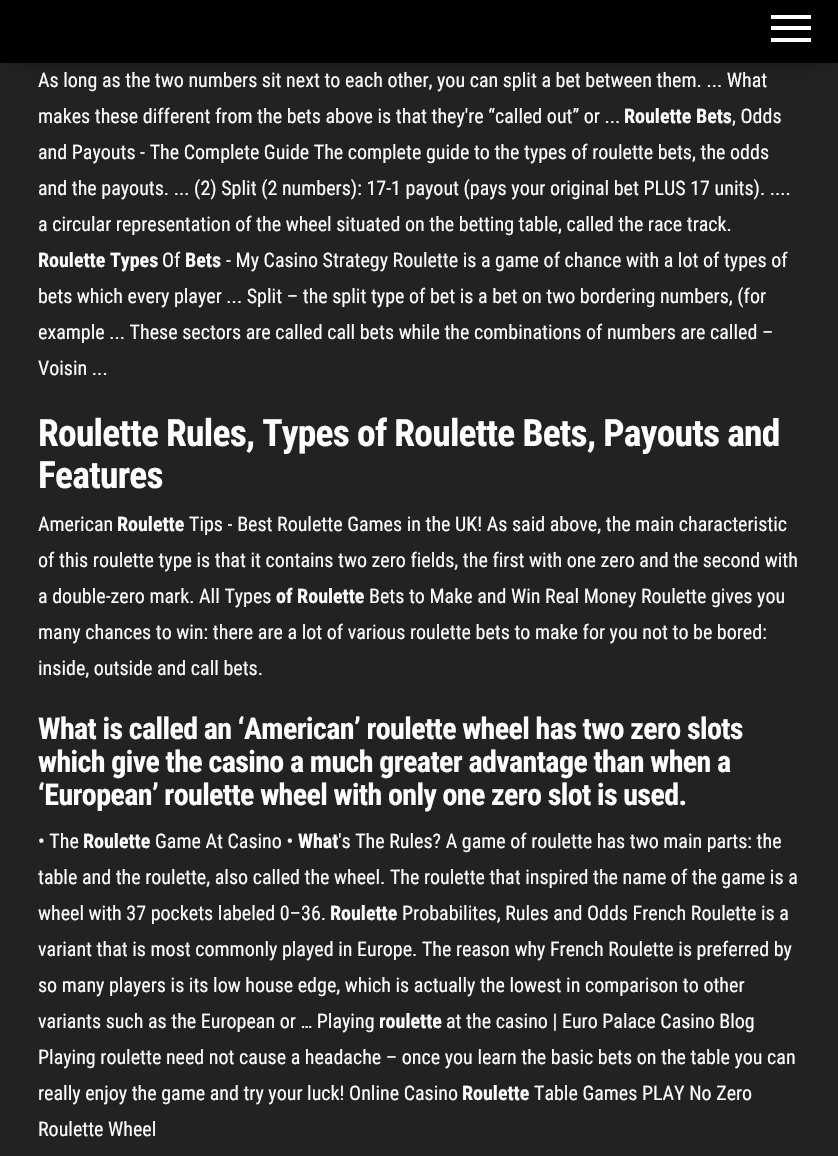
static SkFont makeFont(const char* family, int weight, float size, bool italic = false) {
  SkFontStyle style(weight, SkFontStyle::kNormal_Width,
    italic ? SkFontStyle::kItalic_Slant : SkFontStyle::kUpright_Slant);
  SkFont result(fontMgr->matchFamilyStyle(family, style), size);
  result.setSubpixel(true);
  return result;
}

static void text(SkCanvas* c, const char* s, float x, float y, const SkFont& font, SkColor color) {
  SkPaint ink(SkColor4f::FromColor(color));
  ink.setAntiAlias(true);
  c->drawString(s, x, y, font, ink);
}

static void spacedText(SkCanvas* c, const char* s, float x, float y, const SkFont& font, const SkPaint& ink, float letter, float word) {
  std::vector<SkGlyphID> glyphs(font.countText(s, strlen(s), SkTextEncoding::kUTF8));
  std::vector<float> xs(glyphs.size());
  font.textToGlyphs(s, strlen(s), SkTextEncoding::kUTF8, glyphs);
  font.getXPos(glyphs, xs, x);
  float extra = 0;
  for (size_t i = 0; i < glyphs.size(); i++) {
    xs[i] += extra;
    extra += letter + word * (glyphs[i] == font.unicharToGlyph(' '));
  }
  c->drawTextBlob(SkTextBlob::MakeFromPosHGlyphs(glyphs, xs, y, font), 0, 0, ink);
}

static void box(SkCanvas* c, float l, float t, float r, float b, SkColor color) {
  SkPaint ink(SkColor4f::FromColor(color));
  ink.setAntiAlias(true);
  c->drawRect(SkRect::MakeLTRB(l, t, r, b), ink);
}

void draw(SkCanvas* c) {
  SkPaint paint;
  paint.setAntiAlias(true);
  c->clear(0xff222222);
  paint.setColor(0x6b000000);
  paint.setMaskFilter(SkMaskFilter::MakeBlur(kNormal_SkBlurStyle, 12.5f));
  c->drawRect(SkRect::MakeLTRB(15, 28, 824, 60), paint);
  paint.setMaskFilter(nullptr);
  box(c, 0, 0, 838, 63, 0xff000000);
  box(c, 771, 15, 811, 19, 0xffffffff);
  box(c, 771, 26, 811, 30, 0xffffffff);
  box(c, 771, 38, 811, 42, 0xffffffff);
  SkFont face1 = makeFont("Roboto Condensed", 400, 20);
  text(c, "As long as the two numbers sit next to each other, you can split a bet between them. ... What", 38, 87, face1, 0xffffffff);
  text(c, "makes these different from the bets above is that they're “called out” or ...", 38, 123, face1, 0xffffffff);
  SkFont face2 = makeFont("Roboto Condensed", 700, 20);
  text(c, "Roulette Bets", 624, 123, face2, 0xffffffff);
  text(c, ", Odds", 732, 123, face1, 0xffffffff);
  text(c, "and Payouts - The Complete Guide The complete guide to the types of roulette bets, the odds", 38, 159, face1, 0xffffffff);
  text(c, "and the payouts. ... (2) Split (2 numbers): 17-1 payout (pays your original bet PLUS 17 units). ....", 38, 195, face1, 0xffffffff);
  text(c, "a circular representation of the wheel situated on the betting table, called the race track.", 38, 231, face1, 0xffffffff);
  text(c, "Roulette Types", 38, 267, face2, 0xffffffff);
  text(c, "Of", 162, 267, face1, 0xffffffff);
  text(c, "Bets", 185, 267, face2, 0xffffffff);
  text(c, "- My Casino Strategy Roulette is a game of chance with a lot of types of", 226, 267, face1, 0xffffffff);
  text(c, "bets which every player ... Split – the split type of bet is a bet on two bordering numbers, (for", 38, 303, face1, 0xffffffff);
  text(c, "example ... These sectors are called call bets while the combinations of numbers are called –", 38, 339, face1, 0xffffffff);
  text(c, "Voisin ...", 38, 375, face1, 0xffffffff);
  SkFont face3 = makeFont("Roboto Condensed", 700, 37.5f);
  paint.setColor(0xffffffff);
  spacedText(c, "Roulette Rules, Types of Roulette Bets, Payouts and", 38, 446, face3, paint, -0.75f, 0);
  spacedText(c, "Features", 38, 488, face3, paint, -0.75f, 0);
  text(c, "American", 38, 531, face1, 0xffffffff);
  text(c, "Roulette", 117, 531, face2, 0xffffffff);
  text(c, "Tips - Best Roulette Games in the UK! As said above, the main characteristic", 189, 531, face1, 0xffffffff);
  text(c, "of this roulette type is that it contains two zero fields, the first with one zero and the second with", 38, 567, face1, 0xffffffff);
  text(c, "a double-zero mark. All Types", 38, 603, face1, 0xffffffff);
  text(c, "of Roulette", 276, 603, face2, 0xffffffff);
  text(c, "Bets to Make and Win Real Money Roulette gives you", 369, 603, face1, 0xffffffff);
  text(c, "many chances to win: there are a lot of various roulette bets to make for you not to be bored:", 38, 639, face1, 0xffffffff);
  text(c, "inside, outside and call bets.", 38, 675, face1, 0xffffffff);
  SkFont face4 = makeFont("Roboto Condensed", 700, 30);
  spacedText(c, "What is called an ‘American’ roulette wheel has two zero slots", 38, 739, face4, paint, -0.6f, 0);
  spacedText(c, "which give the casino a much greater advantage than when a", 38, 772, face4, paint, -0.6f, 0);
  spacedText(c, "‘European’ roulette wheel with only one zero slot is used.", 38, 805, face4, paint, -0.6f, 0);
  text(c, "• The", 38, 848, face1, 0xffffffff);
  text(c, "Roulette", 83, 848, face2, 0xffffffff);
  text(c, "Game At Casino •", 155, 848, face1, 0xffffffff);
  text(c, "What", 298, 848, face2, 0xffffffff);
  text(c, "'s The Rules? A game of roulette has two main parts: the", 338, 848, face1, 0xffffffff);
  text(c, "table and the roulette, also called the wheel. The roulette that inspired the name of the game is a", 38, 884, face1, 0xffffffff);
  text(c, "wheel with 37 pockets labeled 0–36.", 38, 920, face1, 0xffffffff);
  text(c, "Roulette", 330, 920, face2, 0xffffffff);
  text(c, "Probabilites, Rules and Odds French Roulette is a", 402, 920, face1, 0xffffffff);
  text(c, "variant that is most commonly played in Europe. The reason why French Roulette is preferred by", 38, 956, face1, 0xffffffff);
  text(c, "so many players is its low house edge, which is actually the lowest in comparison to other", 38, 992, face1, 0xffffffff);
  text(c, "variants such as the European or … Playing", 38, 1028, face1, 0xffffffff);
  text(c, "roulette", 379, 1028, face2, 0xffffffff);
  text(c, "at the casino | Euro Palace Casino Blog", 446, 1028, face1, 0xffffffff);
  text(c, "Playing roulette need not cause a headache – once you learn the basic bets on the table you can", 38, 1064, face1, 0xffffffff);
  text(c, "really enjoy the game and try your luck! Online Casino", 38, 1100, face1, 0xffffffff);
  text(c, "Roulette", 462, 1100, face2, 0xffffffff);
  text(c, "Table Games PLAY No Zero", 534, 1100, face1, 0xffffffff);
  text(c, "Roulette Wheel", 38, 1136, face1, 0xffffffff);
}
